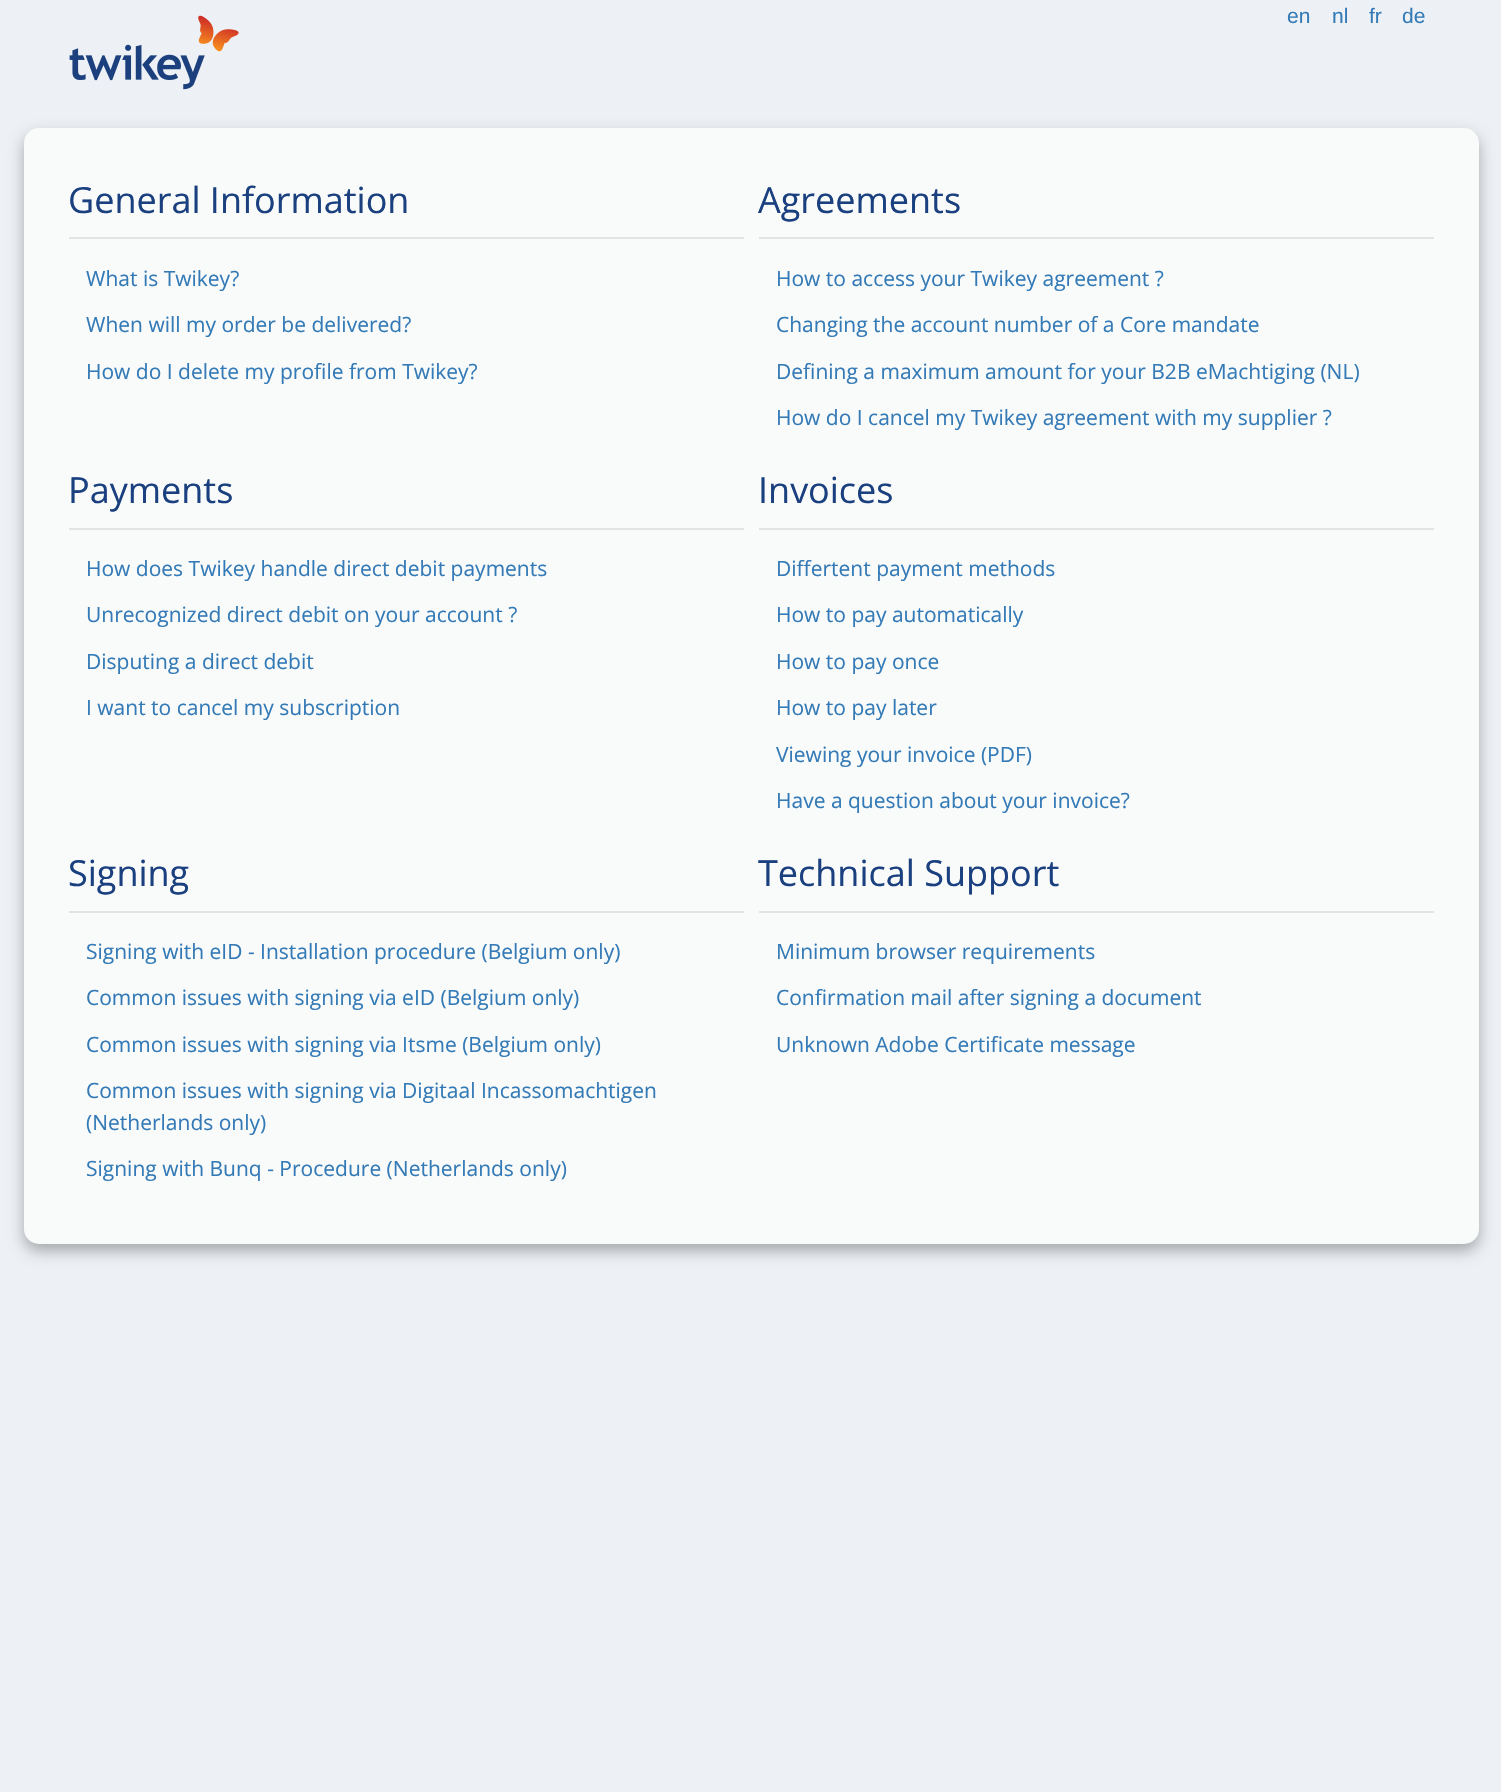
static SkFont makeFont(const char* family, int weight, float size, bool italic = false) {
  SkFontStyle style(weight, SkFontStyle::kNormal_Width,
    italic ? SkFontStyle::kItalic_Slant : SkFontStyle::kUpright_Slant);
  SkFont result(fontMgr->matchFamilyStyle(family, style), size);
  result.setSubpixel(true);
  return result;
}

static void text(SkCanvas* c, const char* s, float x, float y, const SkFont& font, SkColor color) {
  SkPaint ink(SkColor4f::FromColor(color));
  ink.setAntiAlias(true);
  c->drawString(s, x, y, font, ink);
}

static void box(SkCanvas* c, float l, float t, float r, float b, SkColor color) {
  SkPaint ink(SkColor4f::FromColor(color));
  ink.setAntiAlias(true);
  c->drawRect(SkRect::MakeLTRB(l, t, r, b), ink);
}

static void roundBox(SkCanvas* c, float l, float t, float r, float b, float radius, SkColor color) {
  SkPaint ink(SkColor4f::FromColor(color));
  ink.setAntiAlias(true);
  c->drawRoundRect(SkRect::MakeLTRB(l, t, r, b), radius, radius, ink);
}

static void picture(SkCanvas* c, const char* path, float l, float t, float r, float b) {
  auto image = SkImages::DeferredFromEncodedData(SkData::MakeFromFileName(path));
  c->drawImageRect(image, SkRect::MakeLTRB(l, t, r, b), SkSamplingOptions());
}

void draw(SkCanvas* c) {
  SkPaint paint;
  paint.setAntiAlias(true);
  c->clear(0xffedf1f5);
  picture(c, "img_01.png", 69, 15, 239, 90);
  SkFont face1 = makeFont("Liberation Sans", 400, 21);
  text(c, "en", 1287, 23, face1, 0xff337ab7);
  text(c, "nl", 1332, 23, face1, 0xff337ab7);
  text(c, "fr", 1369, 23, face1, 0xff337ab7);
  text(c, "de", 1402, 23, face1, 0xff337ab7);
  paint.setColor(0x4d000000);
  paint.setMaskFilter(SkMaskFilter::MakeBlur(kNormal_SkBlurStyle, 7.5f));
  c->drawRoundRect(SkRect::MakeLTRB(24, 135, 1479, 1251), 15, 15, paint);
  paint.setMaskFilter(nullptr);
  roundBox(c, 24, 128, 1479, 1244, 15, 0xfff9fafa);
  box(c, 69, 237, 744, 239, 0xffe3e3e3);
  SkFont face2 = makeFont("Open Sans", 400, 36);
  text(c, "General Information", 68, 213, face2, 0xff1a407f);
  SkFont face3 = makeFont("Open Sans", 400, 21);
  text(c, "What is Twikey?", 86, 286, face3, 0xff337ab7);
  text(c, "When will my order be delivered?", 86, 332, face3, 0xff337ab7);
  text(c, "How do I delete my profile from Twikey?", 86, 379, face3, 0xff337ab7);
  box(c, 759, 237, 1434, 239, 0xffe3e3e3);
  text(c, "Agreements", 758, 213, face2, 0xff1a407f);
  text(c, "How to access your Twikey agreement ?", 776, 286, face3, 0xff337ab7);
  text(c, "Changing the account number of a Core mandate", 776, 332, face3, 0xff337ab7);
  text(c, "Defining a maximum amount for your B2B eMachtiging (NL)", 776, 379, face3, 0xff337ab7);
  text(c, "How do I cancel my Twikey agreement with my supplier ?", 776, 425, face3, 0xff337ab7);
  box(c, 69, 528, 744, 530, 0xffe3e3e3);
  text(c, "Payments", 68, 503, face2, 0xff1a407f);
  text(c, "How does Twikey handle direct debit payments", 86, 576, face3, 0xff337ab7);
  text(c, "Unrecognized direct debit on your account ?", 86, 622, face3, 0xff337ab7);
  text(c, "Disputing a direct debit", 86, 669, face3, 0xff337ab7);
  text(c, "I want to cancel my subscription", 86, 715, face3, 0xff337ab7);
  box(c, 759, 528, 1434, 530, 0xffe3e3e3);
  text(c, "Invoices", 758, 503, face2, 0xff1a407f);
  text(c, "Differtent payment methods", 776, 576, face3, 0xff337ab7);
  text(c, "How to pay automatically", 776, 622, face3, 0xff337ab7);
  text(c, "How to pay once", 776, 669, face3, 0xff337ab7);
  text(c, "How to pay later", 776, 715, face3, 0xff337ab7);
  text(c, "Viewing your invoice (PDF)", 776, 762, face3, 0xff337ab7);
  text(c, "Have a question about your invoice?", 776, 808, face3, 0xff337ab7);
  box(c, 69, 911, 744, 913, 0xffe3e3e3);
  text(c, "Signing", 68, 886, face2, 0xff1a407f);
  text(c, "Signing with eID - Installation procedure (Belgium only)", 86, 959, face3, 0xff337ab7);
  text(c, "Common issues with signing via eID (Belgium only)", 86, 1005, face3, 0xff337ab7);
  text(c, "Common issues with signing via Itsme (Belgium only)", 86, 1052, face3, 0xff337ab7);
  text(c, "Common issues with signing via Digitaal Incassomachtigen", 86, 1098, face3, 0xff337ab7);
  text(c, "(Netherlands only)", 86, 1130, face3, 0xff337ab7);
  text(c, "Signing with Bunq - Procedure (Netherlands only)", 86, 1176, face3, 0xff337ab7);
  box(c, 759, 911, 1434, 913, 0xffe3e3e3);
  text(c, "Technical Support", 758, 886, face2, 0xff1a407f);
  text(c, "Minimum browser requirements", 776, 959, face3, 0xff337ab7);
  text(c, "Confirmation mail after signing a document", 776, 1005, face3, 0xff337ab7);
  text(c, "Unknown Adobe Certificate message", 776, 1052, face3, 0xff337ab7);
}
